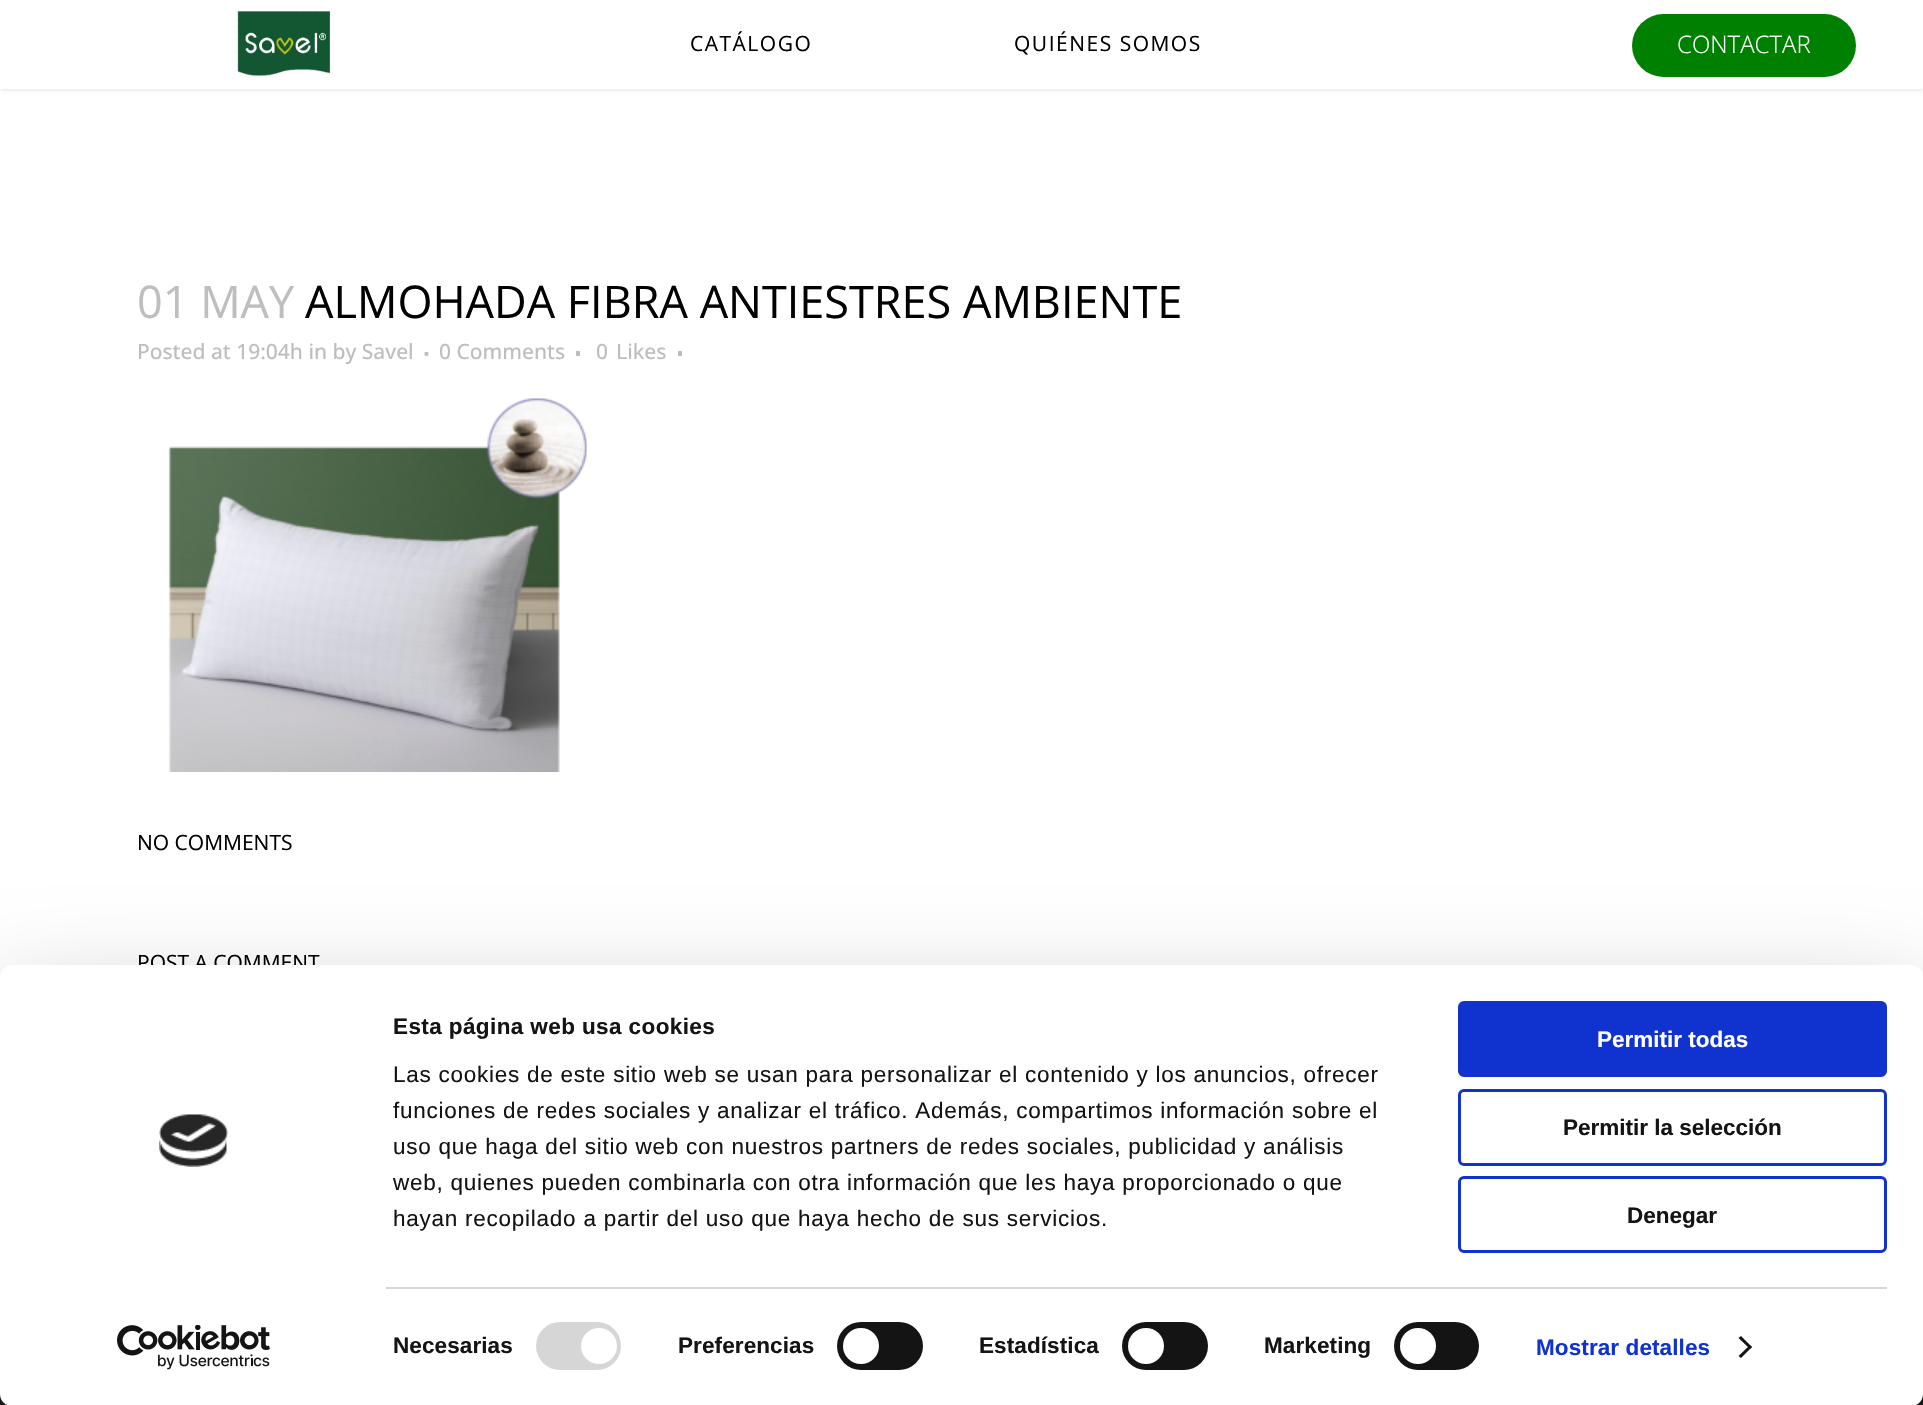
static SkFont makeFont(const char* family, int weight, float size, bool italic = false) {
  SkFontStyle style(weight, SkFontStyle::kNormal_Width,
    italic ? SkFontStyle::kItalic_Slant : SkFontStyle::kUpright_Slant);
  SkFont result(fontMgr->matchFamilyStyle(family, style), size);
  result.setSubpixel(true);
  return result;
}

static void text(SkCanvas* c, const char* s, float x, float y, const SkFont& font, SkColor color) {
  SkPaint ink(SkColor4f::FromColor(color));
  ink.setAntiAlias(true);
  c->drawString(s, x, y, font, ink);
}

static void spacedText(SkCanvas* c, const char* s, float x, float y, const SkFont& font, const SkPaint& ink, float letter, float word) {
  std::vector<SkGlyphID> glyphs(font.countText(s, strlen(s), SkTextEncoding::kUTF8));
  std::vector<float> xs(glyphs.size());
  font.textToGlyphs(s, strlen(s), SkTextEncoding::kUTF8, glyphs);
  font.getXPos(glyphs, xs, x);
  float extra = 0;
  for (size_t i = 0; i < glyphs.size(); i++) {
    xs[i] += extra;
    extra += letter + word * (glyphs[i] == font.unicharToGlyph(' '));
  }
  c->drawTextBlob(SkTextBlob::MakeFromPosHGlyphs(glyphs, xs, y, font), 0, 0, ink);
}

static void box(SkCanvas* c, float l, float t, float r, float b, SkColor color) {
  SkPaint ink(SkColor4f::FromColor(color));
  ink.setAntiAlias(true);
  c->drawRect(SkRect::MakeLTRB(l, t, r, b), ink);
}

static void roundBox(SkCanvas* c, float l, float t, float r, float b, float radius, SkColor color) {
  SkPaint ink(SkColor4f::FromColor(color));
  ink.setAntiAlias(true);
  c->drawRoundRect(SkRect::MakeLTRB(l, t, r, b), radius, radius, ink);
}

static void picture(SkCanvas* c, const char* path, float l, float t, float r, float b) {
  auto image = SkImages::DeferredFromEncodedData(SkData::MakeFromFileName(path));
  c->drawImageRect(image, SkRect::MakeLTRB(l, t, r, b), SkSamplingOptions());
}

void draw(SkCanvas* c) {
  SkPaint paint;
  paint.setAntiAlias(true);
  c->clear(0xffffffff);
  paint.setColor(0x1c000000);
  paint.setMaskFilter(SkMaskFilter::MakeBlur(kNormal_SkBlurStyle, 2));
  c->drawRect(SkRect::MakeLTRB(0, 2, 1923, 90), paint);
  paint.setMaskFilter(nullptr);
  box(c, 0, 0, 1923, 89, 0xffffffff);
  picture(c, "img_01.png", 237, 11, 331, 76);
  SkFont face1 = makeFont("Open Sans", 400, 21);
  paint.setColor(0xff000000);
  spacedText(c, "CATÁLOGO", 690, 51, face1, paint, 1.5f, 0);
  spacedText(c, "QUIÉNES SOMOS", 1014, 51, face1, paint, 1.5f, 0);
  roundBox(c, 1632, 14, 1856, 77, 31.5f, 0xff008000);
  SkFont face2 = makeFont("Open Sans", 300, 24);
  text(c, "CONTACTAR", 1677, 53, face2, 0xffffffff);
  SkFont face3 = makeFont("Open Sans", 400, 45);
  text(c, "01 MAY", 137, 318, face3, 0xffbebebe);
  text(c, "ALMOHADA FIBRA ANTIESTRES AMBIENTE", 305, 318, face3, 0xff000000);
  SkFont face4 = makeFont("Open Sans", 500, 21);
  text(c, "Posted at 19:04h in by Savel", 137, 359, face4, 0xffbebebe);
  picture(c, "img_02.png", 424, 351, 429, 356);
  text(c, "0 Comments", 439, 359, face4, 0xffbebebe);
  box(c, 576, 351, 580, 356, 0xffbebebe);
  text(c, "0", 596, 359, face4, 0xffbebebe);
  text(c, "Likes", 616, 359, face4, 0xffbebebe);
  box(c, 678, 351, 682, 356, 0xffbebebe);
  picture(c, "img_03.png", 168, 398, 587, 772);
  text(c, "NO COMMENTS", 137, 850, face1, 0xff000000);
  text(c, "POST A COMMENT", 137, 970, face1, 0xff000000);
  box(c, 0, 1394, 1923, 1405, 0xff1b1b1b);
  paint.setColor(0x4d000000);
  paint.setMaskFilter(SkMaskFilter::MakeBlur(kNormal_SkBlurStyle, 52.5f));
  c->drawRoundRect(SkRect::MakeLTRB(0, 1010, 1923, 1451), 12, 12, paint);
  paint.setMaskFilter(nullptr);
  roundBox(c, 0, 965, 1923, 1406, 12, 0xffffffff);
  SkFont face5 = makeFont("Liberation Sans", 700, 22.5f);
  paint.setColor(0xff141414);
  spacedText(c, "Esta página web usa cookies", 393, 1034, face5, paint, 0.4f, 0);
  SkFont face6 = makeFont("Liberation Sans", 400, 22.5f);
  spacedText(c, "Las cookies de este sitio web se usan para personalizar el contenido y los anuncios, ofrecer", 393, 1082, face6, paint, 0.75f, 0);
  spacedText(c, "funciones de redes sociales y analizar el tráfico. Además, compartimos información sobre el", 393, 1118, face6, paint, 0.75f, 0);
  spacedText(c, "uso que haga del sitio web con nuestros partners de redes sociales, publicidad y análisis", 393, 1154, face6, paint, 0.75f, 0);
  spacedText(c, "web, quienes pueden combinarla con otra información que les haya proporcionado o que", 393, 1190, face6, paint, 0.75f, 0);
  spacedText(c, "hayan recopilado a partir del uso que haya hecho de sus servicios.", 393, 1226, face6, paint, 0.75f, 0);
  box(c, 386, 1287, 1887, 1289, 0xffd6d6d6);
  spacedText(c, "Necesarias", 393, 1353, face5, paint, 0.1f, 0);
  roundBox(c, 536, 1322, 621, 1370, 24, 0xffd6d6d6);
  paint.setColor(0xffffffff);
  c->drawCircle(599, 1346, 18, paint);
  paint.setColor(0xff141414);
  spacedText(c, "Preferencias", 678, 1353, face5, paint, 0.1f, 0);
  roundBox(c, 837, 1322, 923, 1370, 24, 0xff141414);
  paint.setColor(0xffffffff);
  c->drawCircle(861, 1346, 18, paint);
  paint.setColor(0xff141414);
  spacedText(c, "Estadística", 979, 1353, face5, paint, 0.1f, 0);
  roundBox(c, 1122, 1322, 1208, 1370, 24, 0xff141414);
  paint.setColor(0xffffffff);
  c->drawCircle(1146, 1346, 18, paint);
  paint.setColor(0xff141414);
  spacedText(c, "Marketing", 1264, 1353, face5, paint, 0.1f, 0);
  roundBox(c, 1394, 1322, 1479, 1370, 24, 0xff141414);
  paint.setColor(0xffffffff);
  c->drawCircle(1418, 1346, 18, paint);
  paint.setColor(0xff1032cf);
  spacedText(c, "Mostrar detalles", 1536, 1355, face5, paint, 0.1f, 0);
  paint.setColor(0xff141414);
  c->drawPath(SkPathBuilder().moveTo(1741, 1336).lineTo(1752, 1347).lineTo(1750, 1349).lineTo(1738.5f, 1338).close().detach(), paint);
  c->drawPath(SkPathBuilder().moveTo(1750, 1345).lineTo(1752, 1347).lineTo(1741, 1358).lineTo(1738.5f, 1356).close().detach(), paint);
  picture(c, "img_04.png", 159, 1114, 228, 1167);
  picture(c, "img_05.png", 117, 1325, 270, 1370);
  paint.setColor(0xff1032cf);
  c->drawRoundRect(SkRect::MakeLTRB(1459.5f, 1002.5f, 1885.5f, 1075.5f), 4.5f, 4.5f, paint);
  paint.setStyle(SkPaint::kStroke_Style);
  paint.setStrokeWidth(3);
  c->drawRoundRect(SkRect::MakeLTRB(1459.5f, 1002.5f, 1885.5f, 1075.5f), 4.5f, 4.5f, paint);
  text(c, "Permitir todas", 1597, 1047, face5, 0xffffffff);
  c->drawRoundRect(SkRect::MakeLTRB(1459.5f, 1090.5f, 1885.5f, 1164.5f), 4.5f, 4.5f, paint);
  text(c, "Permitir la selección", 1563, 1135, face5, 0xff141414);
  c->drawRoundRect(SkRect::MakeLTRB(1459.5f, 1177.5f, 1885.5f, 1251.5f), 4.5f, 4.5f, paint);
  text(c, "Denegar", 1627, 1223, face5, 0xff141414);
}
